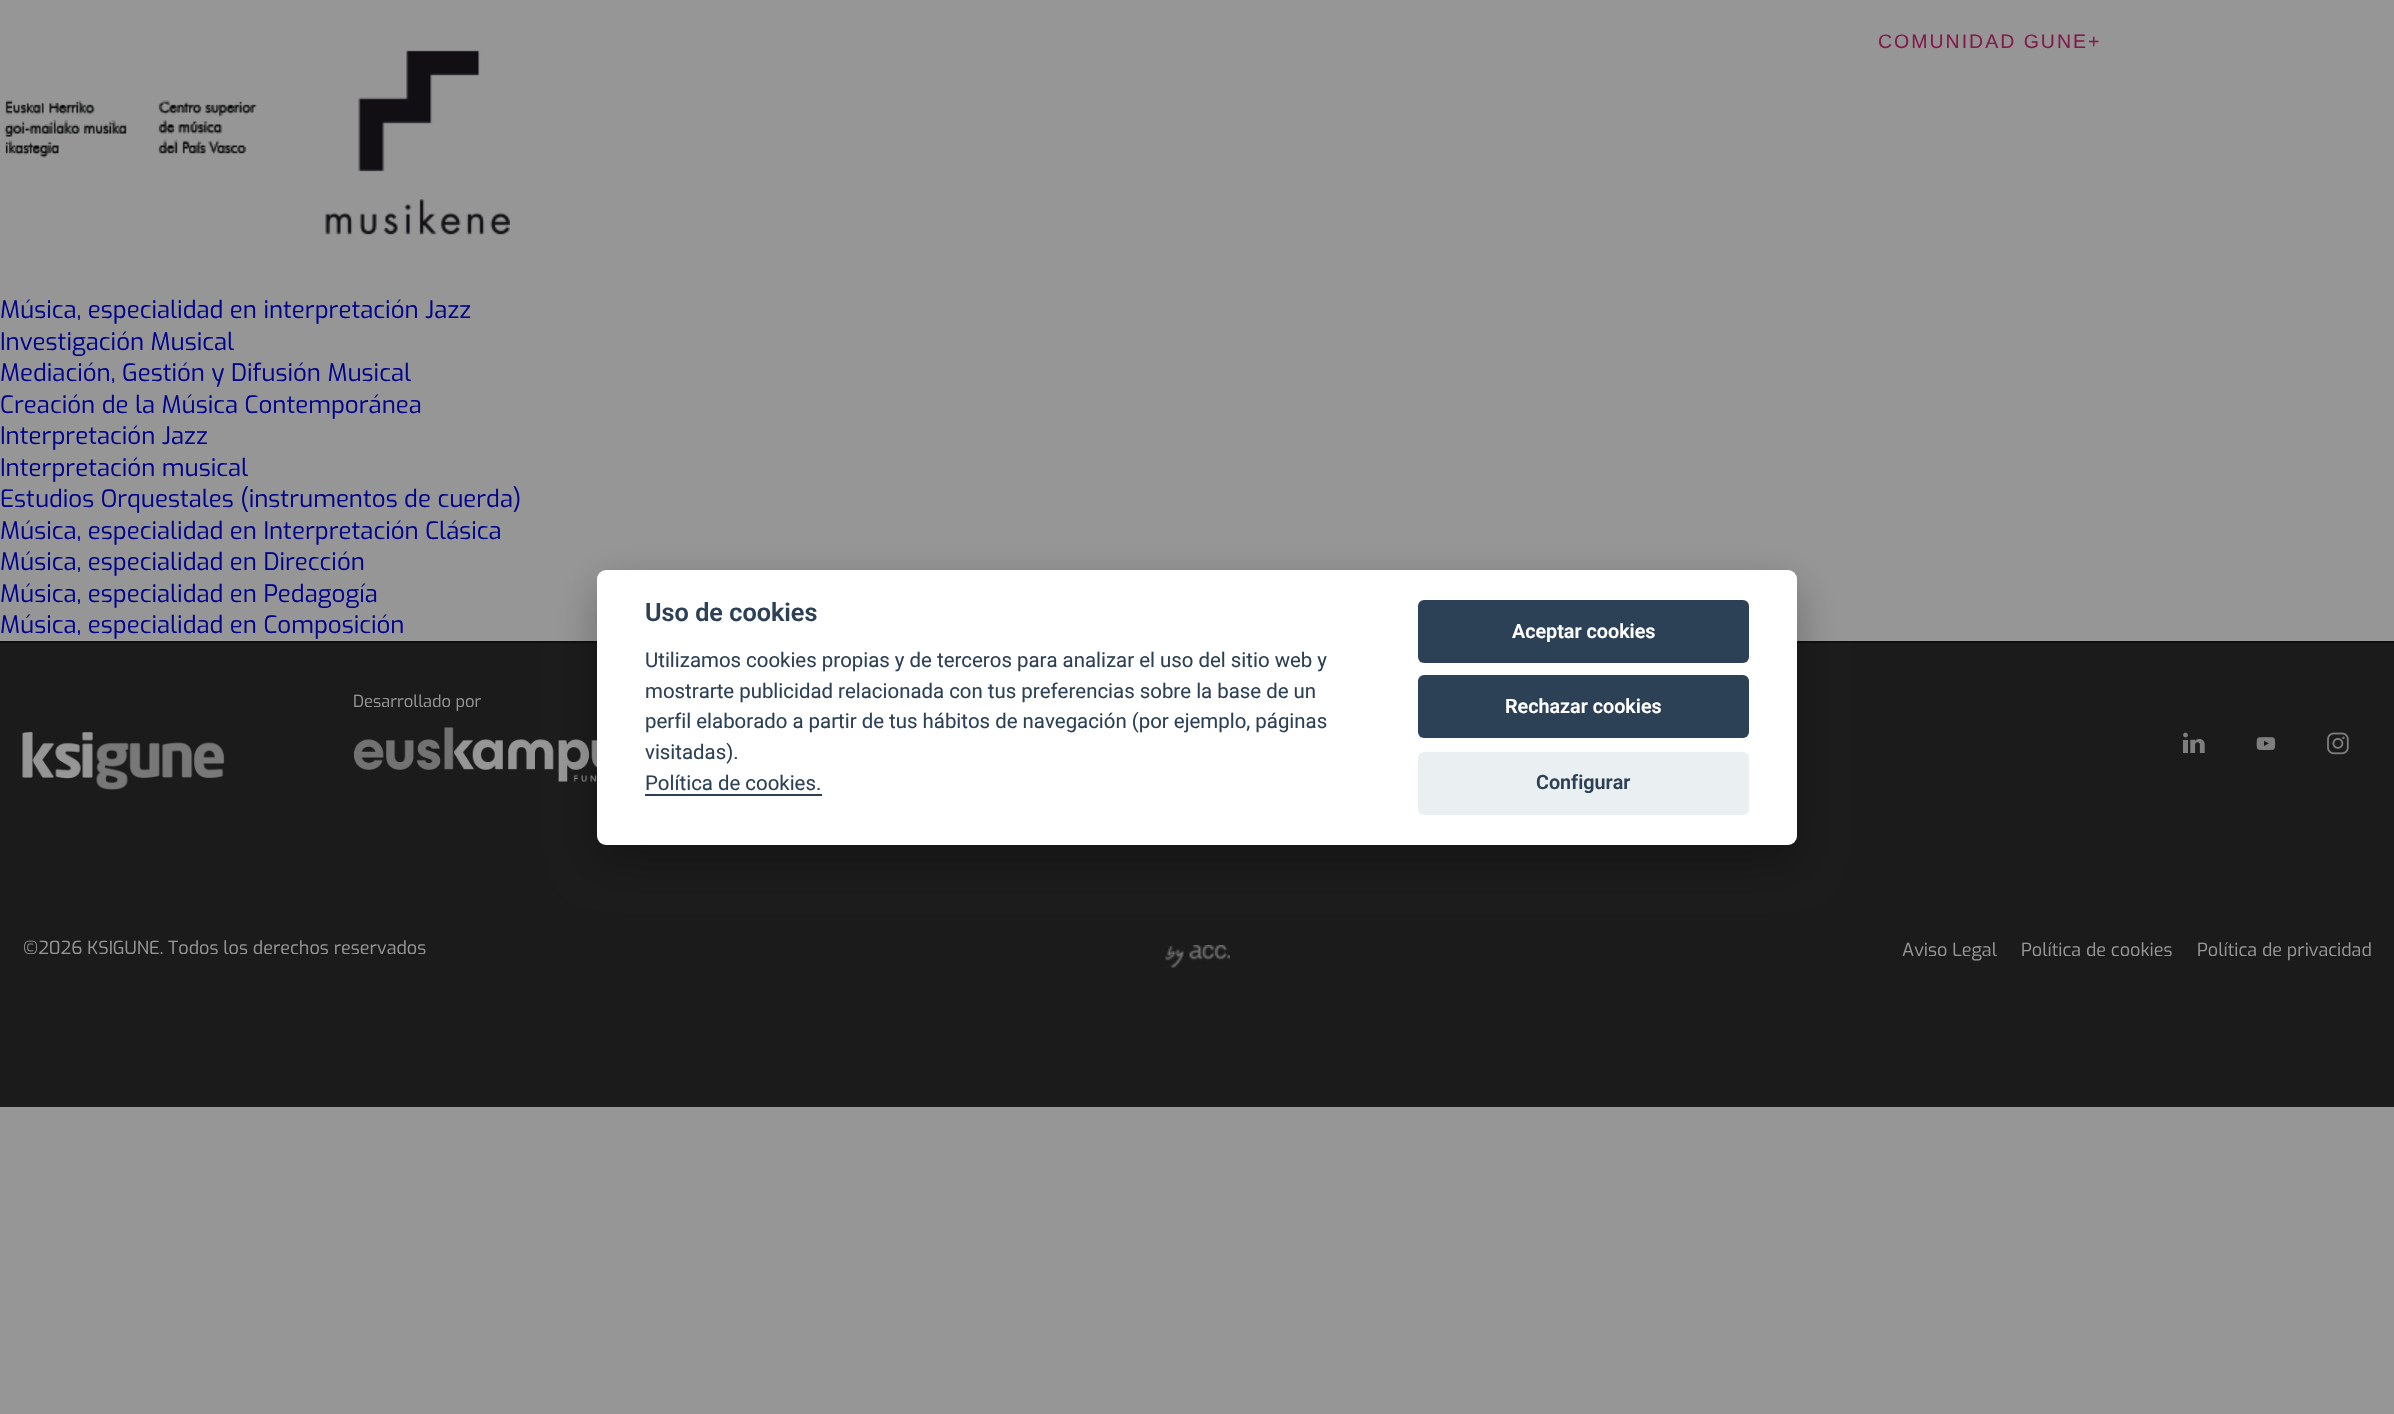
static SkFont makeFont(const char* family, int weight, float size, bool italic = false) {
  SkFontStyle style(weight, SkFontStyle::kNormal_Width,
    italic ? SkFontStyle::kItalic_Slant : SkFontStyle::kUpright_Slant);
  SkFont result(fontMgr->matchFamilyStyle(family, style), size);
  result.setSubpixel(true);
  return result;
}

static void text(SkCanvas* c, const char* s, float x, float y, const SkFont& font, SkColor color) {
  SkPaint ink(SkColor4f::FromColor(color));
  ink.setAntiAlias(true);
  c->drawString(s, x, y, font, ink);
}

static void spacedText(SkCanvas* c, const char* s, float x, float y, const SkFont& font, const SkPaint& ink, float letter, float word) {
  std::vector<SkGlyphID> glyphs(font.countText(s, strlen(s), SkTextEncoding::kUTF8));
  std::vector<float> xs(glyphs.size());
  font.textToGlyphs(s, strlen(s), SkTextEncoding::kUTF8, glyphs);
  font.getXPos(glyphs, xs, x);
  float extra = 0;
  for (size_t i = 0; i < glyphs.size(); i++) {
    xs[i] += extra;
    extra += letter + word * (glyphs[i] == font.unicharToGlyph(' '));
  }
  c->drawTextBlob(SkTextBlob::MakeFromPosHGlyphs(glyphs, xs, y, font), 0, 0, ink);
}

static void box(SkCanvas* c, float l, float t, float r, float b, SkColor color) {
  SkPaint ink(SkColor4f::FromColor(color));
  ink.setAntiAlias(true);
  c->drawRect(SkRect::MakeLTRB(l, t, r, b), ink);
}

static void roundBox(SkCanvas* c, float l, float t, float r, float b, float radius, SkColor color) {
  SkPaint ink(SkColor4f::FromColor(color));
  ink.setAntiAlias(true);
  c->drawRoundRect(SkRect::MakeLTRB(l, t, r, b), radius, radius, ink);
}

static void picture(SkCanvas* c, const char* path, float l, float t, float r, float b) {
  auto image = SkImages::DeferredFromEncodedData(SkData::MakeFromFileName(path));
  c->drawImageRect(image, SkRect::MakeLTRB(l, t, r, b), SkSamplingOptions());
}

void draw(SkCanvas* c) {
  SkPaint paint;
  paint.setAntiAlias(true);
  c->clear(0xff969697);
  picture(c, "img_02.png", 4, 50, 510, 235);
  box(c, 359, 171, 384, 172, 0x80969697);
  SkFont face1 = makeFont("Liberation Sans", 400, 19.5f);
  paint.setColor(0xff821b4b);
  spacedText(c, "COMUNIDAD GUNE+", 1878, 48, face1, paint, 2, 0);
  picture(c, "img_01.png", 26, 100, 186, 110);
  SkFont face2 = makeFont("Exo", 400, 24);
  text(c, "Música, especialidad en interpretación Jazz", 0, 318, face2, 0xff02038d);
  text(c, "Investigación Musical", 0, 350, face2, 0xff02038d);
  text(c, "Mediación, Gestión y Difusión Musical", 0, 381, face2, 0xff02038d);
  text(c, "Creación de la Música Contemporánea", 0, 413, face2, 0xff02038d);
  text(c, "Interpretación Jazz", 0, 444, face2, 0xff02038d);
  text(c, "Interpretación musical", 0, 476, face2, 0xff02038d);
  text(c, "Estudios Orquestales (instrumentos de cuerda)", 0, 507, face2, 0xff02038d);
  text(c, "Música, especialidad en Interpretación Clásica", 0, 539, face2, 0xff02038d);
  text(c, "Música, especialidad en Dirección", 0, 570, face2, 0xff02038d);
  text(c, "Música, especialidad en Pedagogía", 0, 602, face2, 0xff02038d);
  text(c, "Música, especialidad en Composición", 0, 633, face2, 0xff02038d);
  box(c, 0, 643, 2394, 1107, 0xff1b1b1c);
  box(c, 0, 641, 2394, 643, 0xff0e0f10);
  SkFont face3 = makeFont("Exo", 400, 16.5f);
  text(c, "Desarrollado por", 353, 707, face3, 0xff969697);
  picture(c, "img_03.png", 354, 727, 597, 782);
  picture(c, "img_04.png", 22, 732, 225, 790);
  picture(c, "img_05.png", 2183, 732, 2205, 753);
  picture(c, "img_06.png", 2256, 737, 2276, 751);
  picture(c, "img_07.png", 2327, 732, 2349, 755);
  SkFont face4 = makeFont("Exo", 400, 18);
  text(c, "©2026 KSIGUNE. Todos los derechos reservados", 23, 954, face4, 0xff969697);
  text(c, "Aviso Legal", 1902, 956, face4, 0xff969697);
  text(c, "Política de cookies", 2021, 956, face4, 0xff969697);
  text(c, "Política de privacidad", 2197, 956, face4, 0xff969697);
  picture(c, "img_08.png", 1165, 945, 1230, 968);
  paint.setColor(0x47020203);
  paint.setMaskFilter(SkMaskFilter::MakeBlur(kNormal_SkBlurStyle, 22.5f));
  c->drawRoundRect(SkRect::MakeLTRB(597, 585, 1797, 860), 9, 9, paint);
  paint.setMaskFilter(nullptr);
  roundBox(c, 597, 570, 1797, 845, 9, 0xffffffff);
  SkFont face5 = makeFont("Roboto", 600, 25.25f);
  text(c, "Uso de cookies", 645, 621, face5, 0xff2d4156);
  SkFont face6 = makeFont("Roboto", 400, 20.4f);
  text(c, "Utilizamos cookies propias y de terceros para analizar el uso del sitio web y", 645, 667, face6, 0xff2d4156);
  text(c, "mostrarte publicidad relacionada con tus preferencias sobre la base de un", 645, 698, face6, 0xff2d4156);
  text(c, "perfil elaborado a partir de tus hábitos de navegación (por ejemplo, páginas", 645, 728, face6, 0xff2d4156);
  text(c, "visitadas).", 645, 759, face6, 0xff2d4156);
  text(c, "Política de cookies.", 645, 790, face6, 0xff2d4156);
  box(c, 645, 794, 822, 796, 0xff2d4156);
  roundBox(c, 1418, 600, 1749, 663, 6, 0xff2d4156);
  SkFont face7 = makeFont("Roboto", 600, 19.75f);
  text(c, "Aceptar cookies", 1512, 638, face7, 0xffffffff);
  roundBox(c, 1418, 675, 1749, 738, 6, 0xff2d4156);
  text(c, "Rechazar cookies", 1505, 713, face7, 0xffffffff);
  roundBox(c, 1418, 752, 1749, 815, 6, 0xffeaeff2);
  text(c, "Configurar", 1536, 789, face7, 0xff2d4156);
}
